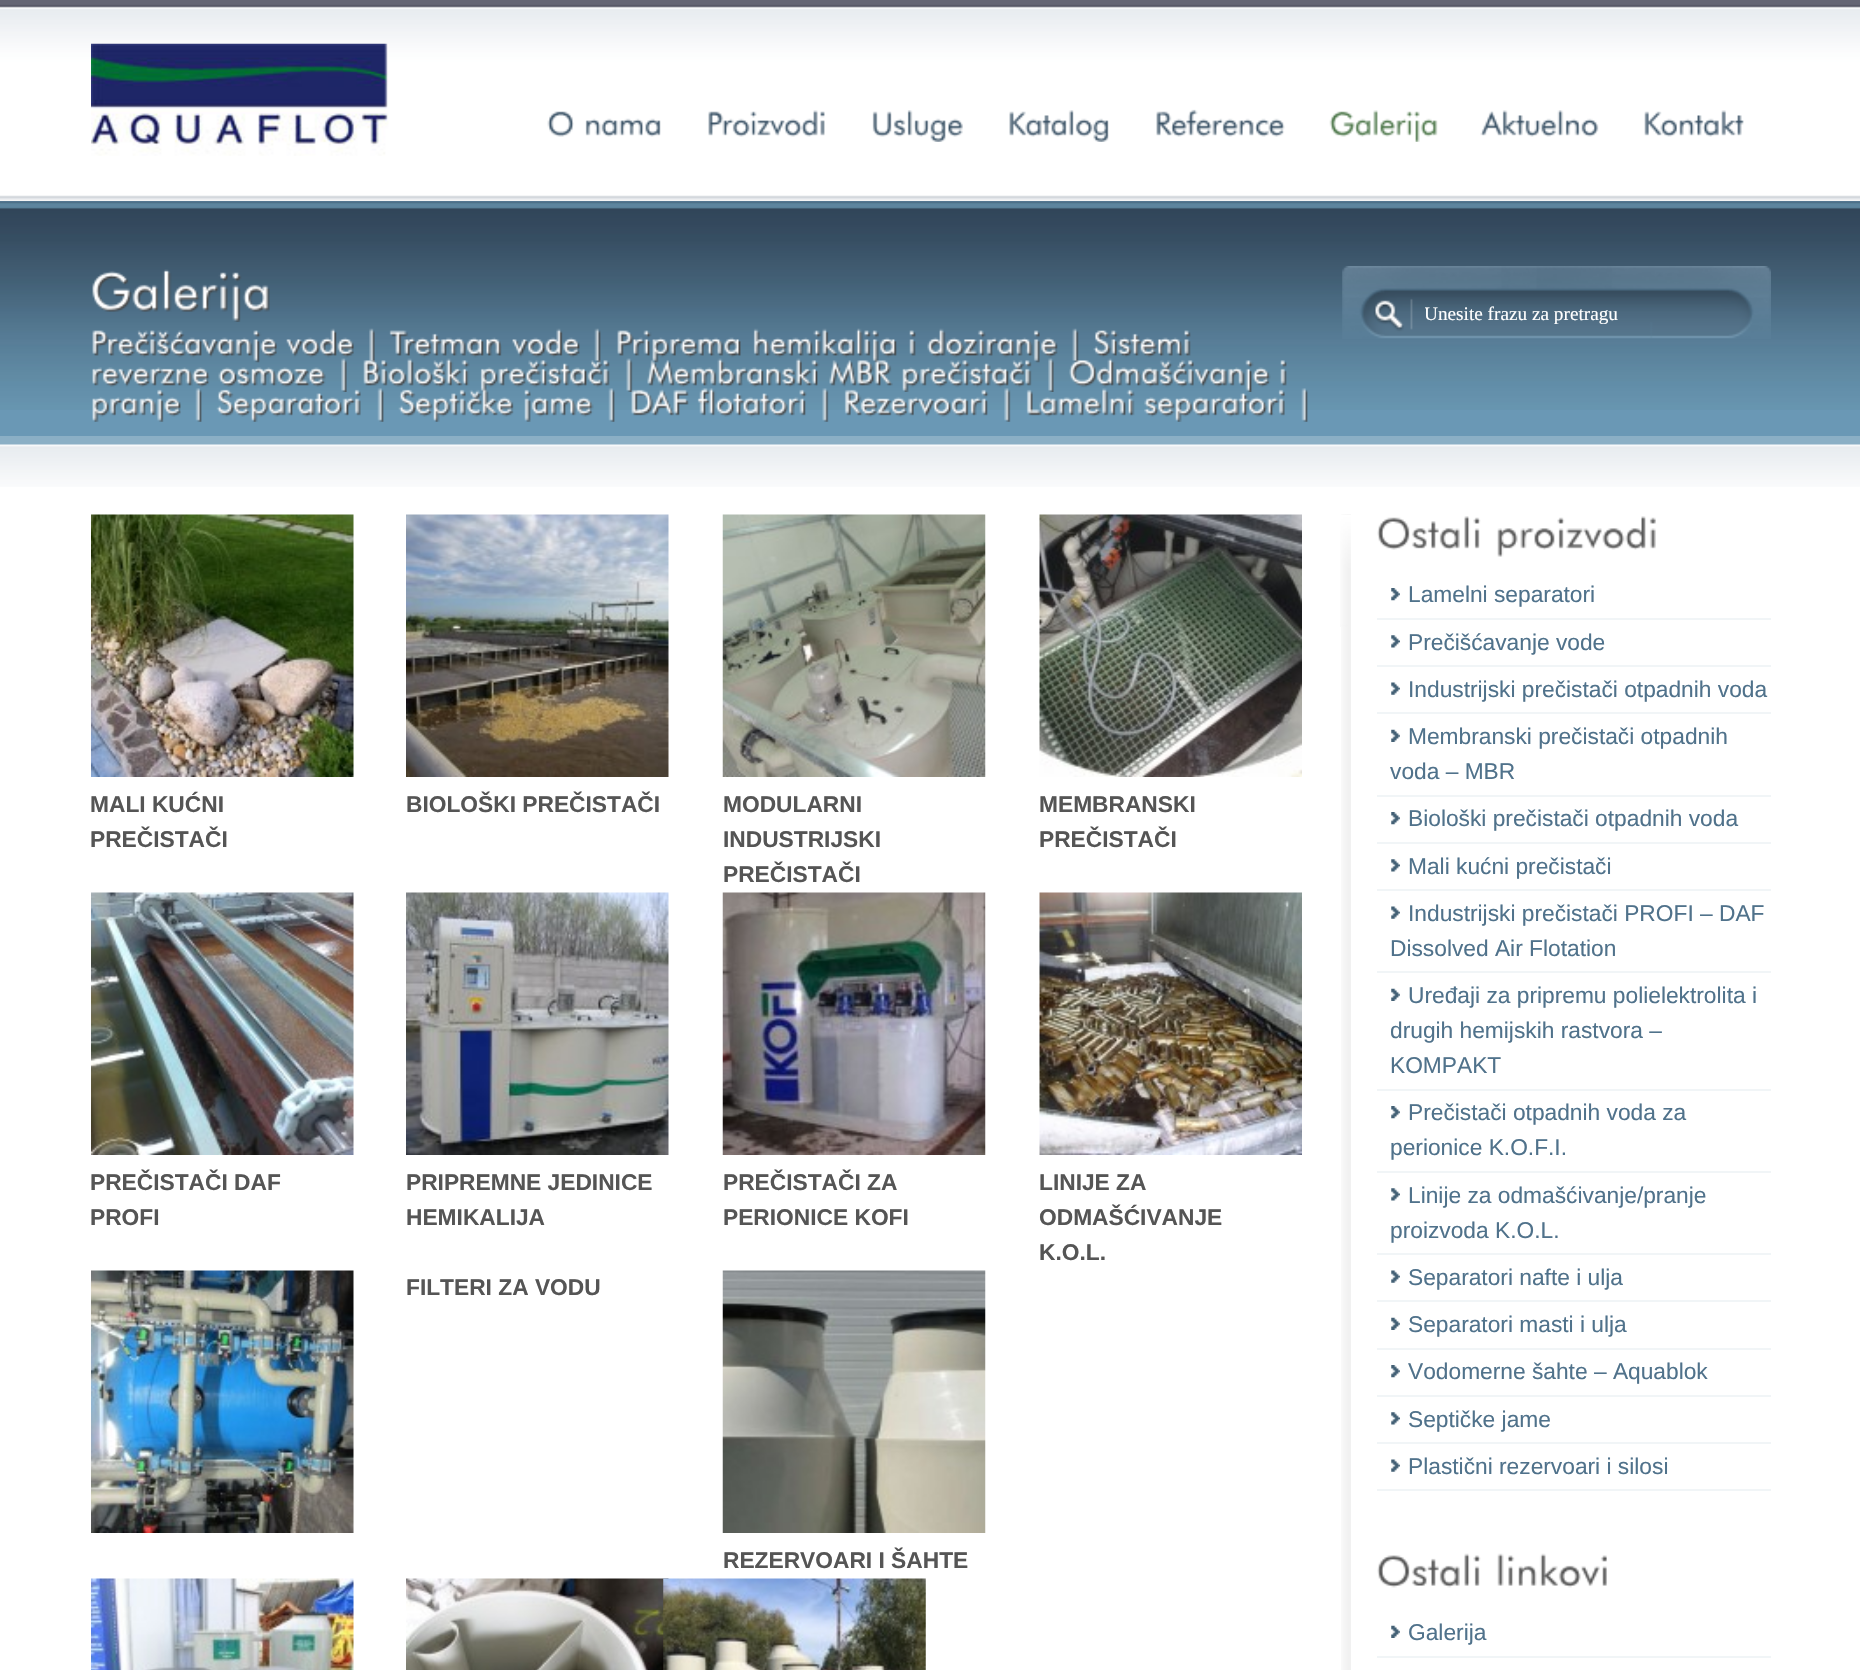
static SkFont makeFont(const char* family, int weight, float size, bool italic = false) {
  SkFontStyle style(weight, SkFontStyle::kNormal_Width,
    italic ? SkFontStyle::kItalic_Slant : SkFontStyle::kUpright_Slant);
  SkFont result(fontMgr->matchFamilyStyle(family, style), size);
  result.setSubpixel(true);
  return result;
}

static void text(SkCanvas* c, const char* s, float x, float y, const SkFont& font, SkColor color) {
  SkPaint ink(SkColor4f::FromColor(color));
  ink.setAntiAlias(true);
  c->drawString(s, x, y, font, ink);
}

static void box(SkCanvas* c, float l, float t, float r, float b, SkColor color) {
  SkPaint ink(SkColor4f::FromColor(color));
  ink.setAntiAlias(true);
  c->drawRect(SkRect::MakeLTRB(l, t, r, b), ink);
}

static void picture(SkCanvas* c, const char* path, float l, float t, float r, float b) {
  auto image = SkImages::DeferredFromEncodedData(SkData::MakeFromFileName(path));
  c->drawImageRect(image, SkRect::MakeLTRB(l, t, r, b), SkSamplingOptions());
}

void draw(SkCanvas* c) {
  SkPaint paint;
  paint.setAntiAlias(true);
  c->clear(0xffffffff);
  picture(c, "img_01.png", 0, 0, 1860, 201);
  picture(c, "img_02.png", 91, 43, 389, 156);
  picture(c, "img_03.png", 547, 111, 574, 137);
  picture(c, "img_04.png", 585, 118, 661, 137);
  picture(c, "img_05.png", 708, 110, 825, 137);
  picture(c, "img_06.png", 872, 110, 963, 142);
  picture(c, "img_07.png", 1009, 110, 1109, 142);
  picture(c, "img_08.png", 1156, 109, 1285, 137);
  picture(c, "img_09.png", 1329, 110, 1438, 142);
  picture(c, "img_10.png", 1480, 110, 1599, 137);
  picture(c, "img_11.png", 1644, 110, 1744, 137);
  box(c, 0, 201, 1860, 436, 0xff6a98b5);
  picture(c, "img_12.png", 0, 201, 1860, 410);
  box(c, 0, 436, 1860, 445, 0xff8bafc5);
  picture(c, "img_13.png", 92, 269, 270, 322);
  picture(c, "img_14.png", 92, 330, 277, 363);
  picture(c, "img_15.png", 286, 328, 354, 358);
  picture(c, "img_16.png", 369, 328, 375, 363);
  picture(c, "img_17.png", 389, 330, 502, 358);
  picture(c, "img_18.png", 512, 328, 580, 358);
  picture(c, "img_19.png", 594, 328, 601, 363);
  picture(c, "img_20.png", 617, 330, 741, 363);
  picture(c, "img_21.png", 753, 328, 897, 363);
  picture(c, "img_22.png", 909, 330, 916, 356);
  picture(c, "img_23.png", 927, 328, 1058, 363);
  picture(c, "img_24.png", 1072, 328, 1079, 363);
  picture(c, "img_25.png", 1093, 330, 1191, 358);
  picture(c, "img_26.png", 92, 367, 210, 387);
  picture(c, "img_27.png", 218, 367, 326, 387);
  picture(c, "img_28.png", 341, 358, 347, 392);
  picture(c, "img_29.png", 363, 358, 470, 387);
  picture(c, "img_30.png", 480, 360, 610, 392);
  picture(c, "img_31.png", 626, 358, 633, 392);
  picture(c, "img_32.png", 647, 358, 820, 387);
  picture(c, "img_33.png", 829, 360, 893, 387);
  picture(c, "img_34.png", 902, 360, 1032, 392);
  picture(c, "img_35.png", 1048, 358, 1054, 392);
  picture(c, "img_36.png", 1069, 358, 1271, 392);
  picture(c, "img_37.png", 1280, 360, 1287, 386);
  picture(c, "img_38.png", 92, 389, 181, 422);
  picture(c, "img_39.png", 195, 388, 202, 422);
  picture(c, "img_40.png", 216, 389, 361, 422);
  picture(c, "img_39.png", 377, 388, 384, 422);
  picture(c, "img_41.png", 398, 388, 514, 422);
  picture(c, "img_42.png", 524, 389, 594, 422);
  picture(c, "img_39.png", 608, 388, 615, 422);
  picture(c, "img_43.png", 631, 389, 689, 416);
  picture(c, "img_44.png", 697, 388, 807, 417);
  picture(c, "img_45.png", 822, 388, 829, 422);
  picture(c, "img_46.png", 844, 389, 989, 417);
  picture(c, "img_47.png", 1004, 388, 1011, 422);
  picture(c, "img_48.png", 1026, 388, 1135, 417);
  picture(c, "img_49.png", 1144, 389, 1285, 422);
  picture(c, "img_39.png", 1301, 388, 1308, 422);
  picture(c, "img_50.png", 1342, 266, 1771, 339);
  c->save();
  c->clipRect(SkRect::MakeLTRB(1425, 303, 1740, 324));
  SkFont face1 = makeFont("Liberation Serif", 400, 19.25f);
  text(c, "Unesite frazu za pretragu", 1424, 320, face1, 0xffffffff);
  c->restore();
  picture(c, "img_51.png", 0, 444, 1860, 487);
  picture(c, "img_52.png", 1341, 514, 1351, 1670);
  picture(c, "img_53.png", 1340, 515, 1351, 627);
  picture(c, "img_54.png", 91, 514, 354, 777);
  SkFont face2 = makeFont("Liberation Sans", 700, 22.75f);
  text(c, "MALI KUĆNI", 90, 812, face2, 0xff555555);
  text(c, "PREČISTAČI", 90, 847, face2, 0xff555555);
  picture(c, "img_55.png", 406, 514, 669, 777);
  text(c, "BIOLOŠKI PREČISTAČI", 406, 812, face2, 0xff555555);
  picture(c, "img_56.png", 722, 514, 986, 777);
  text(c, "MODULARNI", 723, 812, face2, 0xff555555);
  text(c, "INDUSTRIJSKI", 723, 847, face2, 0xff555555);
  text(c, "PREČISTAČI", 723, 882, face2, 0xff555555);
  picture(c, "img_57.png", 1039, 514, 1302, 777);
  text(c, "MEMBRANSKI", 1039, 812, face2, 0xff555555);
  text(c, "PREČISTAČI", 1039, 847, face2, 0xff555555);
  picture(c, "img_58.png", 1039, 892, 1302, 1155);
  picture(c, "img_59.png", 91, 892, 354, 1155);
  text(c, "PREČISTAČI DAF", 90, 1190, face2, 0xff555555);
  text(c, "PROFI", 90, 1225, face2, 0xff555555);
  picture(c, "img_60.png", 406, 892, 669, 1155);
  text(c, "PRIPREMNE JEDINICE", 406, 1190, face2, 0xff555555);
  text(c, "HEMIKALIJA", 406, 1225, face2, 0xff555555);
  picture(c, "img_61.png", 722, 892, 986, 1155);
  text(c, "PREČISTAČI ZA", 723, 1190, face2, 0xff555555);
  text(c, "PERIONICE KOFI", 723, 1225, face2, 0xff555555);
  text(c, "LINIJE ZA", 1039, 1190, face2, 0xff555555);
  text(c, "ODMAŠĆIVANJE", 1039, 1225, face2, 0xff555555);
  text(c, "K.O.L.", 1039, 1260, face2, 0xff555555);
  picture(c, "img_62.png", 91, 1270, 354, 1533);
  text(c, "FILTERI ZA VODU", 406, 1295, face2, 0xff555555);
  picture(c, "img_63.png", 722, 1270, 986, 1533);
  text(c, "REZERVOARI I ŠAHTE", 723, 1568, face2, 0xff555555);
  picture(c, "img_64.png", 91, 1578, 354, 1670);
  picture(c, "img_65.png", 406, 1578, 669, 1670);
  picture(c, "img_66.png", 663, 1578, 926, 1670);
  picture(c, "img_67.png", 1377, 516, 1481, 550);
  picture(c, "img_68.png", 1497, 516, 1656, 557);
  box(c, 1377, 618, 1771, 620, 0xfff1f5f7);
  picture(c, "img_69.png", 1391, 588, 1400, 601);
  SkFont face3 = makeFont("Liberation Sans", 400, 22.75f);
  text(c, "Lamelni separatori", 1408, 602, face3, 0xff50728b);
  box(c, 1377, 665, 1771, 667, 0xfff1f5f7);
  picture(c, "img_70.png", 1391, 635, 1400, 648);
  text(c, "Prečišćavanje vode", 1408, 650, face3, 0xff50728b);
  box(c, 1377, 712, 1771, 714, 0xfff1f5f7);
  picture(c, "img_71.png", 1391, 682, 1400, 695);
  text(c, "Industrijski prečistači otpadnih voda", 1408, 697, face3, 0xff50728b);
  box(c, 1377, 795, 1771, 797, 0xfff1f5f7);
  picture(c, "img_72.png", 1391, 729, 1400, 742);
  text(c, "Membranski prečistači otpadnih", 1408, 744, face3, 0xff50728b);
  text(c, "voda – MBR", 1390, 779, face3, 0xff50728b);
  box(c, 1377, 842, 1771, 844, 0xfff1f5f7);
  picture(c, "img_69.png", 1391, 812, 1400, 825);
  text(c, "Biološki prečistači otpadnih voda", 1408, 826, face3, 0xff50728b);
  box(c, 1377, 889, 1771, 891, 0xfff1f5f7);
  picture(c, "img_70.png", 1391, 859, 1400, 872);
  text(c, "Mali kućni prečistači", 1408, 874, face3, 0xff50728b);
  box(c, 1377, 971, 1771, 973, 0xfff1f5f7);
  picture(c, "img_71.png", 1391, 906, 1400, 919);
  text(c, "Industrijski prečistači PROFI – DAF", 1408, 921, face3, 0xff50728b);
  text(c, "Dissolved Air Flotation", 1390, 956, face3, 0xff50728b);
  box(c, 1377, 1089, 1771, 1091, 0xfff1f5f7);
  picture(c, "img_72.png", 1391, 988, 1400, 1001);
  text(c, "Uređaji za pripremu polielektrolita i", 1408, 1003, face3, 0xff50728b);
  text(c, "drugih hemijskih rastvora –", 1390, 1038, face3, 0xff50728b);
  text(c, "KOMPAKT", 1390, 1073, face3, 0xff50728b);
  box(c, 1377, 1171, 1771, 1173, 0xfff1f5f7);
  picture(c, "img_69.png", 1391, 1106, 1400, 1119);
  text(c, "Prečistači otpadnih voda za", 1408, 1120, face3, 0xff50728b);
  text(c, "perionice K.O.F.I.", 1390, 1155, face3, 0xff50728b);
  box(c, 1377, 1253, 1771, 1255, 0xfff1f5f7);
  picture(c, "img_70.png", 1391, 1188, 1400, 1201);
  text(c, "Linije za odmašćivanje/pranje", 1408, 1203, face3, 0xff50728b);
  text(c, "proizvoda K.O.L.", 1390, 1238, face3, 0xff50728b);
  box(c, 1377, 1300, 1771, 1302, 0xfff1f5f7);
  picture(c, "img_71.png", 1391, 1270, 1400, 1283);
  text(c, "Separatori nafte i ulja", 1408, 1285, face3, 0xff50728b);
  box(c, 1377, 1348, 1771, 1350, 0xfff1f5f7);
  picture(c, "img_72.png", 1391, 1317, 1400, 1330);
  text(c, "Separatori masti i ulja", 1408, 1332, face3, 0xff50728b);
  box(c, 1377, 1395, 1771, 1397, 0xfff1f5f7);
  picture(c, "img_69.png", 1391, 1365, 1400, 1378);
  text(c, "Vodomerne šahte – Aquablok", 1408, 1379, face3, 0xff50728b);
  box(c, 1377, 1442, 1771, 1444, 0xfff1f5f7);
  picture(c, "img_70.png", 1391, 1412, 1400, 1425);
  text(c, "Septičke jame", 1408, 1427, face3, 0xff50728b);
  box(c, 1377, 1489, 1771, 1491, 0xfff1f5f7);
  picture(c, "img_71.png", 1391, 1459, 1400, 1472);
  text(c, "Plastični rezervoari i silosi", 1408, 1474, face3, 0xff50728b);
  picture(c, "img_73.png", 1377, 1553, 1481, 1588);
  picture(c, "img_74.png", 1497, 1553, 1607, 1588);
  box(c, 1377, 1656, 1771, 1658, 0xfff1f5f7);
  picture(c, "img_72.png", 1391, 1625, 1400, 1638);
  text(c, "Galerija", 1408, 1640, face3, 0xff50728b);
}
